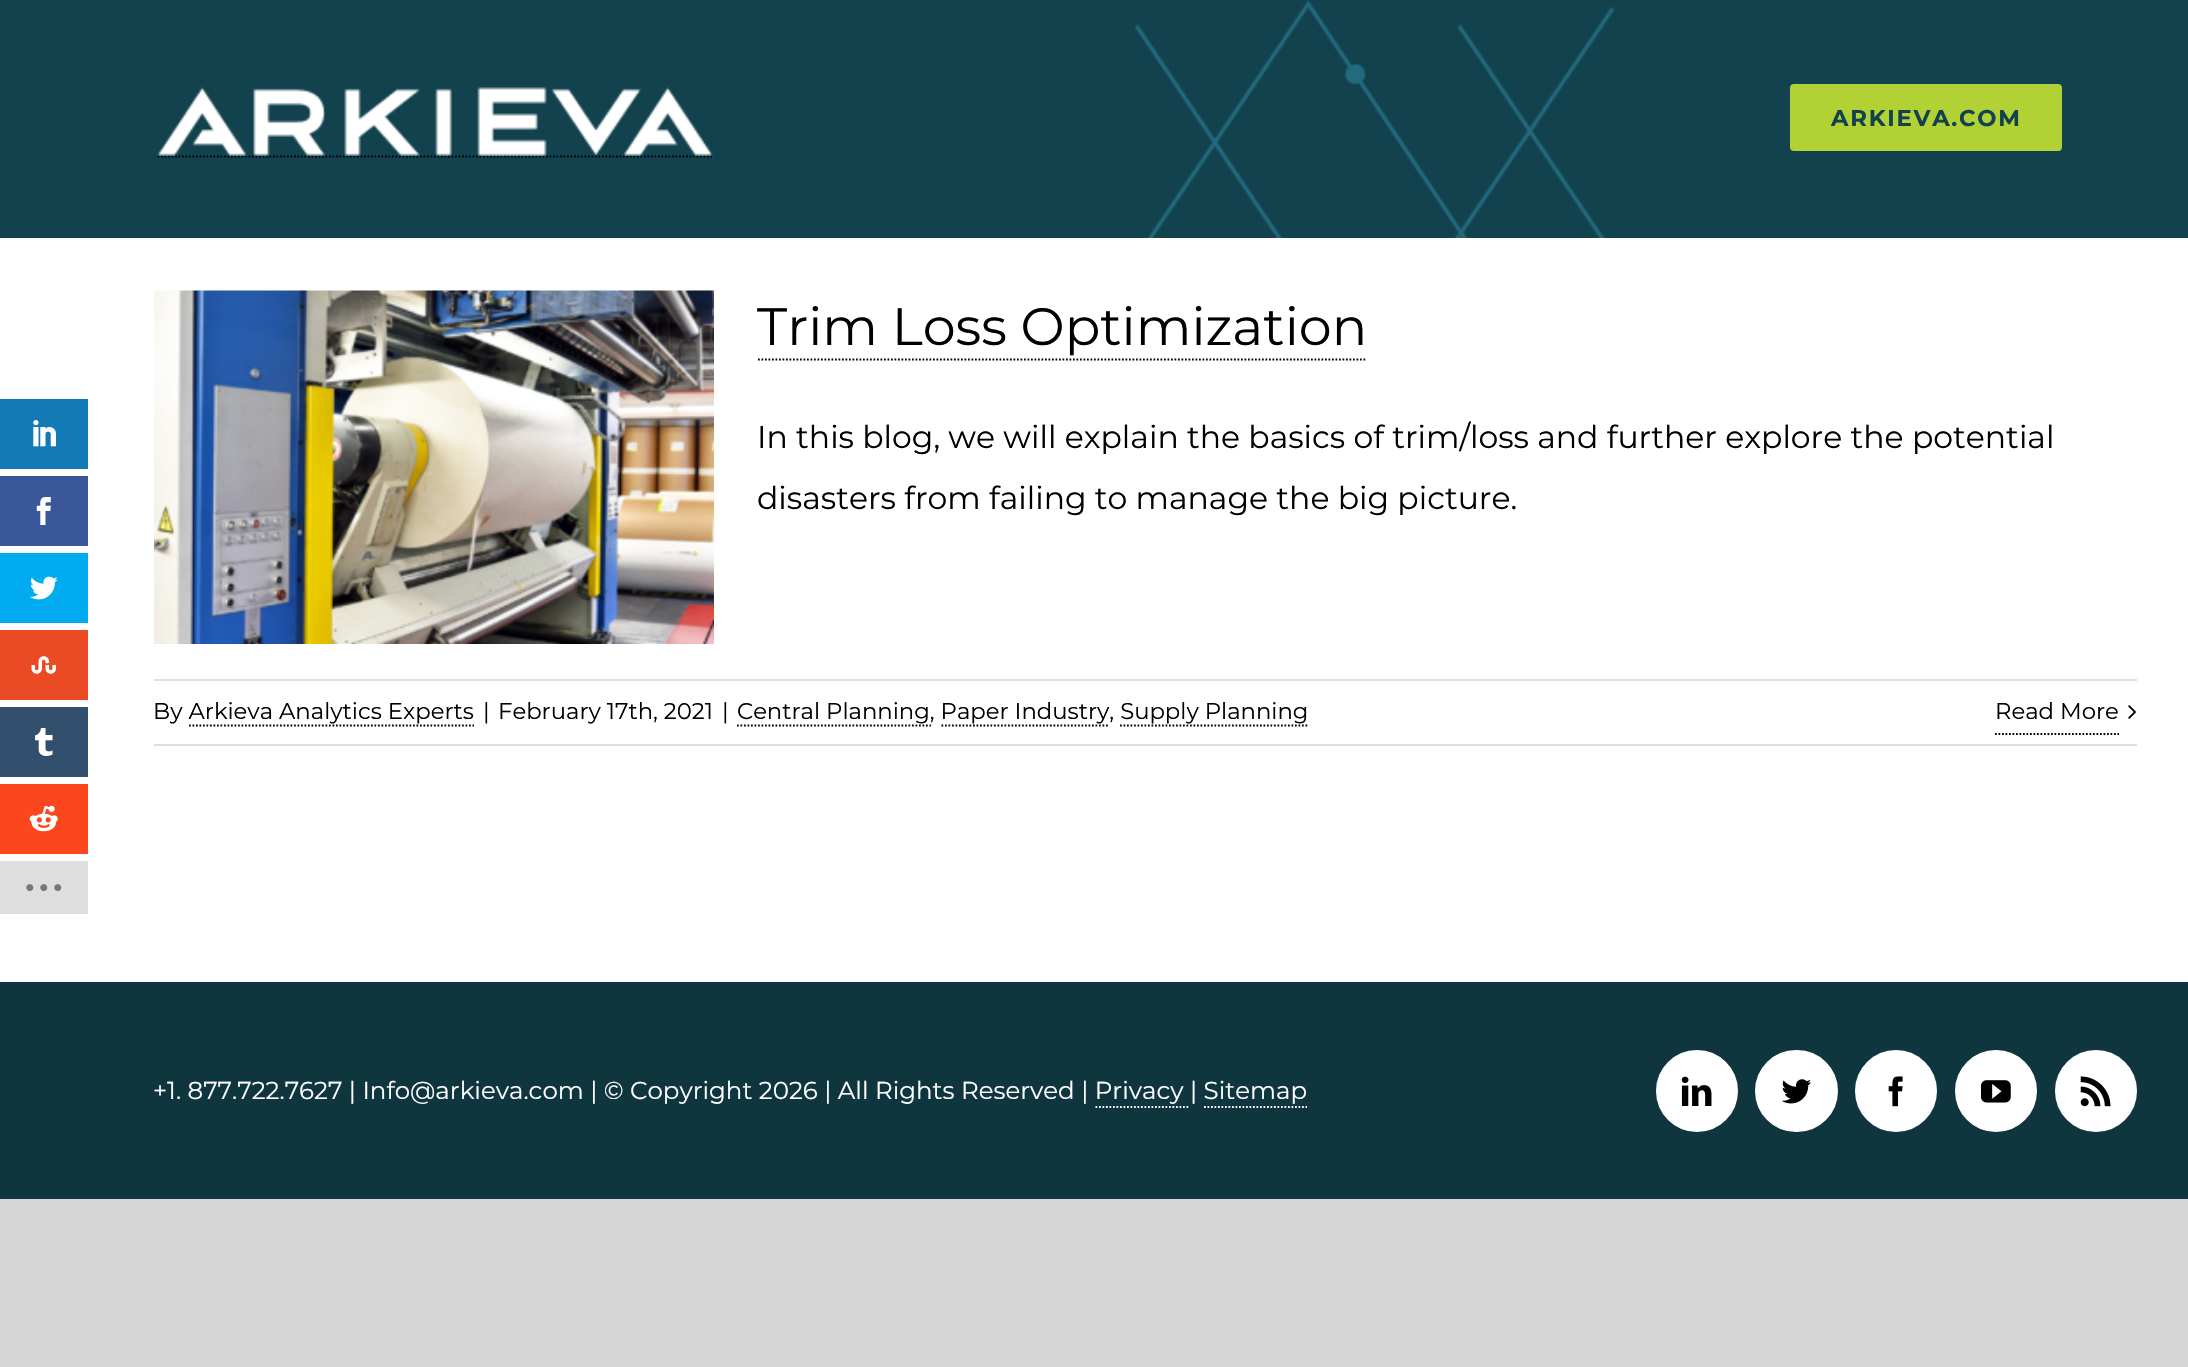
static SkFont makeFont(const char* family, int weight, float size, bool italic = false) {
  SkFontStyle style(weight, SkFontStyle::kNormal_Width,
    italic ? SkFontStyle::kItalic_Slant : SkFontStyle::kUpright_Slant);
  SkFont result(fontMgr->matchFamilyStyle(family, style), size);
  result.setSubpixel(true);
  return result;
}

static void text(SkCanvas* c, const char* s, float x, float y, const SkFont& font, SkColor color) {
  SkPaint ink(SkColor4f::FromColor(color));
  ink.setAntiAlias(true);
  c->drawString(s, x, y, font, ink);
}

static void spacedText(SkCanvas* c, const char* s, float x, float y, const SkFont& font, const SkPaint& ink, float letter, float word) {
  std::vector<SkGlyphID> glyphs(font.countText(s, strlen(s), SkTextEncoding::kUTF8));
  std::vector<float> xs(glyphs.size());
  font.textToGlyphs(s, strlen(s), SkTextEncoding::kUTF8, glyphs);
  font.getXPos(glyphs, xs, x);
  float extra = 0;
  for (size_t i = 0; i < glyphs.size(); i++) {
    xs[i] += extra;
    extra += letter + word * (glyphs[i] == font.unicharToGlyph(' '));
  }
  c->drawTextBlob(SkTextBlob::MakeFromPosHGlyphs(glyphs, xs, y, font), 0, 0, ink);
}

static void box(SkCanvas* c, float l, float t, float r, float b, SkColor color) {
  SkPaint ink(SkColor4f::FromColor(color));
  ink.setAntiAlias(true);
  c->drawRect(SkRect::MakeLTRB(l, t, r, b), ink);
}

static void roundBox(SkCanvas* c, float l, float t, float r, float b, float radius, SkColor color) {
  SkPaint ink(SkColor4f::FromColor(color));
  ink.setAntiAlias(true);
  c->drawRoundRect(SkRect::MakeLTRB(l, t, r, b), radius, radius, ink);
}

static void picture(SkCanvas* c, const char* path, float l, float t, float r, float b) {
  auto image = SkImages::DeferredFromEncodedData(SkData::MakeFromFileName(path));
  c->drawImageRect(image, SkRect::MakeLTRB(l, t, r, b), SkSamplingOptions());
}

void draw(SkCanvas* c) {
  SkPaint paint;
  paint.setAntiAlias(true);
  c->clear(0xffd7d6d6);
  box(c, 0, 238, 2188, 982, 0xffffffff);
  box(c, 0, 399, 88, 469, 0xff127bb6);
  picture(c, "img_01.png", 33, 420, 56, 447);
  box(c, 0, 476, 88, 546, 0xff3a579a);
  picture(c, "img_02.png", 36, 497, 51, 525);
  box(c, 0, 553, 88, 623, 0xff00abf0);
  picture(c, "img_03.png", 30, 576, 58, 600);
  box(c, 0, 630, 88, 700, 0xffea4b24);
  picture(c, "img_04.png", 31, 656, 56, 674);
  box(c, 0, 707, 88, 777, 0xff32506d);
  picture(c, "img_05.png", 35, 728, 53, 756);
  box(c, 0, 784, 88, 854, 0xfffc461e);
  picture(c, "img_06.png", 29, 805, 58, 832);
  box(c, 0, 861, 88, 914, 0xffdedede);
  picture(c, "img_07.png", 26, 884, 62, 892);
  box(c, 0, 0, 2188, 238, 0xff12424e);
  picture(c, "img_08.png", 1134, 0, 1615, 238);
  paint.setStyle(SkPaint::kStroke_Style);
  paint.setStrokeWidth(1.8f);
  paint.setColor(0xff000000);
  paint.setPathEffect(SkDashPathEffect::Make({{1.75f, 1.75f}}, 0));
  c->drawPath(SkPathBuilder().moveTo(157.5f, 156.5f).lineTo(712, 156.5f).detach(), paint);
  paint.setPathEffect(nullptr);
  picture(c, "img_09.png", 157, 87, 713, 156);
  roundBox(c, 1790, 84, 2062, 151, 4, 0xffb1d135);
  SkFont face1 = makeFont("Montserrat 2", 100, 22.75f);
  paint.setStyle(SkPaint::kFill_Style);
  paint.setColor(0xff11424d);
  spacedText(c, "ARKIEVA.COM", 1831, 126, face1, paint, 1.75f, 0);
  picture(c, "img_10.png", 154, 290, 714, 644);
  SkFont face2 = makeFont("Montserrat", 100, 52.5f);
  text(c, "Trim Loss Optimization", 757, 345, face2, 0xff000000);
  paint.setStyle(SkPaint::kStroke_Style);
  paint.setColor(0xff000000);
  paint.setPathEffect(SkDashPathEffect::Make({{1.75f, 1.75f}}, 0));
  c->drawPath(SkPathBuilder().moveTo(758, 359.5f).lineTo(1367, 359.5f).detach(), paint);
  paint.setPathEffect(nullptr);
  SkFont face3 = makeFont("Montserrat", 100, 31.5f);
  text(c, "In this blog, we will explain the basics of trim/loss and further explore the potential", 757, 448, face3, 0xff000000);
  text(c, "disasters from failing to manage the big picture.", 757, 509, face3, 0xff000000);
  box(c, 154, 679, 2137, 681, 0xffe0dede);
  box(c, 154, 744, 2137, 746, 0xffe0dede);
  SkFont face4 = makeFont("Montserrat", 100, 22.75f);
  text(c, "By Arkieva Analytics Experts", 153, 719, face4, 0xff000000);
  text(c, "|", 483, 719, face4, 0xff000000);
  text(c, "February 17th, 2021", 498, 719, face4, 0xff000000);
  text(c, "|", 722, 719, face4, 0xff000000);
  text(c, "Central Planning, Paper Industry, Supply Planning", 737, 719, face4, 0xff000000);
  paint.setPathEffect(SkDashPathEffect::Make({{1.75f, 1.75f}}, 0));
  c->drawPath(SkPathBuilder().moveTo(737, 725.5f).lineTo(931, 725.5f).detach(), paint);
  paint.setPathEffect(nullptr);
  paint.setPathEffect(SkDashPathEffect::Make({{1.75f, 1.75f}}, 0));
  c->drawPath(SkPathBuilder().moveTo(189, 725.5f).lineTo(474, 725.5f).detach(), paint);
  paint.setPathEffect(nullptr);
  paint.setPathEffect(SkDashPathEffect::Make({{1.75f, 1.75f}}, 0));
  c->drawPath(SkPathBuilder().moveTo(941.5f, 725.5f).lineTo(1109.5f, 725.5f).detach(), paint);
  paint.setPathEffect(nullptr);
  paint.setPathEffect(SkDashPathEffect::Make({{1.75f, 1.75f}}, 0));
  c->drawPath(SkPathBuilder().moveTo(1120, 725.5f).lineTo(1309, 725.5f).detach(), paint);
  paint.setPathEffect(nullptr);
  paint.setPathEffect(SkDashPathEffect::Make({{1.75f, 1.75f}}, 0));
  c->drawPath(SkPathBuilder().moveTo(1995, 734).lineTo(2119, 734).detach(), paint);
  paint.setPathEffect(nullptr);
  text(c, "Read More", 1995, 719, face4, 0xff000000);
  picture(c, "img_11.png", 2128, 705, 2137, 719);
  box(c, 0, 982, 2188, 1199, 0xff0f353f);
  SkFont face5 = makeFont("Montserrat", 100, 24.5f);
  text(c, "+1. 877.722.7627 | Info@arkieva.com | © Copyright 2026 | All Rights Reserved | Privacy | Sitemap", 153, 1099, face5, 0xffffffff);
  paint.setColor(0xffffffff);
  paint.setPathEffect(SkDashPathEffect::Make({{1.75f, 1.75f}}, 0));
  c->drawPath(SkPathBuilder().moveTo(1095.5f, 1107).lineTo(1190, 1107).detach(), paint);
  paint.setPathEffect(nullptr);
  paint.setPathEffect(SkDashPathEffect::Make({{1.75f, 1.75f}}, 0));
  c->drawPath(SkPathBuilder().moveTo(1204, 1107).lineTo(1307, 1107).detach(), paint);
  paint.setPathEffect(nullptr);
  paint.setStyle(SkPaint::kFill_Style);
  c->drawCircle(1697, 1091, 40, paint);
  paint.setStyle(SkPaint::kStroke_Style);
  paint.setStrokeWidth(2);
  c->drawCircle(1697, 1091, 40, paint);
  picture(c, "img_12.png", 1681, 1076, 1712, 1106);
  paint.setStyle(SkPaint::kFill_Style);
  c->drawRoundRect(SkRect::MakeLTRB(1756, 1051, 1837, 1131), 40, 40, paint);
  paint.setStyle(SkPaint::kStroke_Style);
  c->drawRoundRect(SkRect::MakeLTRB(1756, 1051, 1837, 1131), 40, 40, paint);
  picture(c, "img_13.png", 1781, 1079, 1812, 1104);
  paint.setStyle(SkPaint::kFill_Style);
  c->drawCircle(1896, 1091, 40, paint);
  paint.setStyle(SkPaint::kStroke_Style);
  c->drawCircle(1896, 1091, 40, paint);
  picture(c, "img_14.png", 1888, 1076, 1903, 1107);
  paint.setStyle(SkPaint::kFill_Style);
  c->drawCircle(1996, 1091, 40, paint);
  paint.setStyle(SkPaint::kStroke_Style);
  c->drawCircle(1996, 1091, 40, paint);
  picture(c, "img_15.png", 1981, 1080, 2011, 1103);
  paint.setStyle(SkPaint::kFill_Style);
  c->drawCircle(2096, 1091, 40, paint);
  paint.setStyle(SkPaint::kStroke_Style);
  c->drawCircle(2096, 1091, 40, paint);
  picture(c, "img_16.png", 2080, 1076, 2111, 1107);
}
